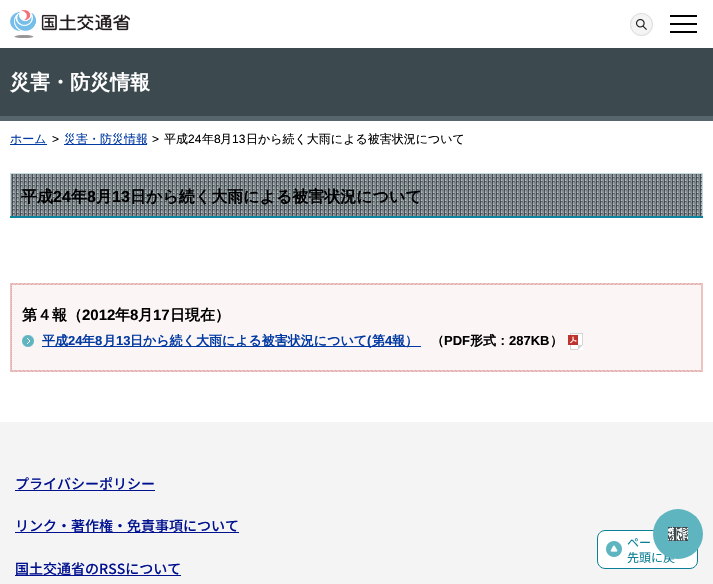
static SkFont makeFont(const char* family, int weight, float size, bool italic = false) {
  SkFontStyle style(weight, SkFontStyle::kNormal_Width,
    italic ? SkFontStyle::kItalic_Slant : SkFontStyle::kUpright_Slant);
  SkFont result(fontMgr->matchFamilyStyle(family, style), size);
  result.setSubpixel(true);
  return result;
}

static void text(SkCanvas* c, const char* s, float x, float y, const SkFont& font, SkColor color) {
  SkPaint ink(SkColor4f::FromColor(color));
  ink.setAntiAlias(true);
  c->drawString(s, x, y, font, ink);
}

static void box(SkCanvas* c, float l, float t, float r, float b, SkColor color) {
  SkPaint ink(SkColor4f::FromColor(color));
  ink.setAntiAlias(true);
  c->drawRect(SkRect::MakeLTRB(l, t, r, b), ink);
}

static void roundBox(SkCanvas* c, float l, float t, float r, float b, float radius, SkColor color) {
  SkPaint ink(SkColor4f::FromColor(color));
  ink.setAntiAlias(true);
  c->drawRoundRect(SkRect::MakeLTRB(l, t, r, b), radius, radius, ink);
}

static void picture(SkCanvas* c, const char* path, float l, float t, float r, float b) {
  auto image = SkImages::DeferredFromEncodedData(SkData::MakeFromFileName(path));
  c->drawImageRect(image, SkRect::MakeLTRB(l, t, r, b), SkSamplingOptions());
}

void draw(SkCanvas* c) {
  SkPaint paint;
  paint.setAntiAlias(true);
  c->clear(0xffffffff);
  picture(c, "img_01.png", 10, 10, 130, 38);
  paint.setColor(0xfff4f4f4);
  c->drawCircle(641.5f, 24.5f, 11.5f, paint);
  picture(c, "img_02.png", 636, 19, 647, 30);
  paint.setStyle(SkPaint::kStroke_Style);
  paint.setStrokeWidth(1);
  paint.setColor(0xffdcdcdc);
  c->drawCircle(641.5f, 24.5f, 11, paint);
  box(c, 670, 15, 697, 17, 0xff000000);
  box(c, 670, 23, 697, 25, 0xff000000);
  box(c, 670, 31, 697, 33, 0xff000000);
  box(c, 0, 48, 713, 116, 0xff3c494f);
  box(c, 0, 116, 713, 121, 0xff56646b);
  SkFont face1 = makeFont("WenQuanYi Zen Hei", 700, 20);
  text(c, "災害・防災情報", 10, 89, face1, 0xffffffff);
  box(c, 10, 144, 47, 145, 0xff013aa2);
  SkFont face2 = makeFont("WenQuanYi Zen Hei", 500, 12);
  text(c, "ホーム", 10, 143, face2, 0xff013aa2);
  SkFont face3 = makeFont("Liberation Sans", 400, 12);
  text(c, ">", 52, 143, face3, 0xff000000);
  box(c, 64, 144, 147, 145, 0xff013aa2);
  text(c, "災害・防災情報", 64, 143, face2, 0xff013aa2);
  text(c, ">", 152, 143, face3, 0xff000000);
  text(c, "平成", 164, 143, face2, 0xff000000);
  text(c, "24", 188, 143, face3, 0xff000000);
  text(c, "年", 202, 143, face2, 0xff000000);
  text(c, "8", 214, 143, face3, 0xff000000);
  text(c, "月", 220, 143, face2, 0xff000000);
  text(c, "13", 232, 143, face3, 0xff000000);
  text(c, "日から続く大雨による被害状況について", 246, 143, face2, 0xff000000);
  box(c, 10, 216, 703, 218, 0xff0d849d);
  picture(c, "img_03.png", 11, 174, 702, 216);
  box(c, 10, 173, 703, 174, 0xffc6dce0);
  box(c, 702, 173, 703, 216, 0xffc6dce0);
  box(c, 10, 173, 11, 216, 0xffc6dce0);
  SkFont face4 = makeFont("WenQuanYi Zen Hei", 700, 16);
  text(c, "平成", 21, 202, face4, 0xff000000);
  SkFont face5 = makeFont("Liberation Sans", 700, 16);
  text(c, "24", 53, 202, face5, 0xff000000);
  text(c, "年", 71, 202, face4, 0xff000000);
  text(c, "8", 87, 202, face5, 0xff000000);
  text(c, "月", 96, 202, face4, 0xff000000);
  text(c, "13", 112, 202, face5, 0xff000000);
  text(c, "日から続く大雨による被害状況について", 130, 202, face4, 0xff000000);
  picture(c, "img_04.png", 10, 283, 703, 372);
  box(c, 12, 285, 701, 370, 0xfffcf5f5);
  SkFont face6 = makeFont("WenQuanYi Zen Hei", 700, 15);
  text(c, "第４報（", 22, 320, face6, 0xff000000);
  SkFont face7 = makeFont("Liberation Sans", 700, 15);
  text(c, "2012", 82, 320, face7, 0xff000000);
  text(c, "年", 115, 320, face6, 0xff000000);
  text(c, "8", 130, 320, face7, 0xff000000);
  text(c, "月", 138, 320, face6, 0xff000000);
  text(c, "17", 153, 320, face7, 0xff000000);
  text(c, "日現在）", 170, 320, face6, 0xff000000);
  picture(c, "img_05.png", 22, 335, 34, 347);
  box(c, 42, 346, 421, 347, 0xff013aa2);
  SkFont face8 = makeFont("WenQuanYi Zen Hei", 700, 13);
  text(c, "平成", 42, 345, face8, 0xff013aa2);
  SkFont face9 = makeFont("Liberation Sans", 700, 13);
  text(c, "24", 68, 345, face9, 0xff013aa2);
  text(c, "年", 82, 345, face8, 0xff013aa2);
  text(c, "8", 95, 345, face9, 0xff013aa2);
  text(c, "月", 103, 345, face8, 0xff013aa2);
  text(c, "13", 116, 345, face9, 0xff013aa2);
  text(c, "日から続く大雨による被害状況について", 130, 345, face8, 0xff013aa2);
  text(c, "(", 367, 345, face9, 0xff013aa2);
  text(c, "第", 372, 345, face8, 0xff013aa2);
  text(c, "4", 385, 345, face9, 0xff013aa2);
  text(c, "報）", 392, 345, face8, 0xff013aa2);
  text(c, "（", 431, 345, face8, 0xff000000);
  text(c, "PDF", 444, 345, face9, 0xff000000);
  text(c, "形式：", 470, 345, face8, 0xff000000);
  text(c, "287KB", 509, 345, face9, 0xff000000);
  text(c, "）", 550, 345, face8, 0xff000000);
  picture(c, "img_06.png", 568, 333, 583, 350);
  box(c, 0, 422, 713, 584, 0xfff4f4f4);
  roundBox(c, 597, 530, 698, 569, 8, 0xffffffff);
  picture(c, "img_08.png", 606, 541, 622, 557);
  paint.setColor(0xff0b7f96);
  c->drawRoundRect(SkRect::MakeLTRB(597.5f, 530.5f, 697.5f, 568.5f), 7.5f, 7.5f, paint);
  SkFont face10 = makeFont("Noto Sans JP", 400, 12);
  text(c, "先頭に戻", 627, 562, face10, 0xff0b7f96);
  paint.setStyle(SkPaint::kFill_Style);
  paint.setColor(0xff5eb5c0);
  c->drawCircle(678, 534, 25, paint);
  picture(c, "img_07.png", 668, 527, 688, 541);
  SkFont face11 = makeFont("Noto Sans JP", 500, 14);
  text(c, "プライバシーポリシー", 15, 489, face11, 0xff00118f);
  box(c, 15, 490, 155, 491, 0xff00118f);
  box(c, 15, 532, 239, 533, 0xff00118f);
  text(c, "リンク・著作権・免責事項について", 15, 531, face11, 0xff00118f);
  box(c, 15, 575, 181, 576, 0xff00118f);
  text(c, "国土交通省のRSSについて", 15, 574, face11, 0xff00118f);
  text(c, "ペー", 627, 547, face10, 0xff0b7f96);
}
